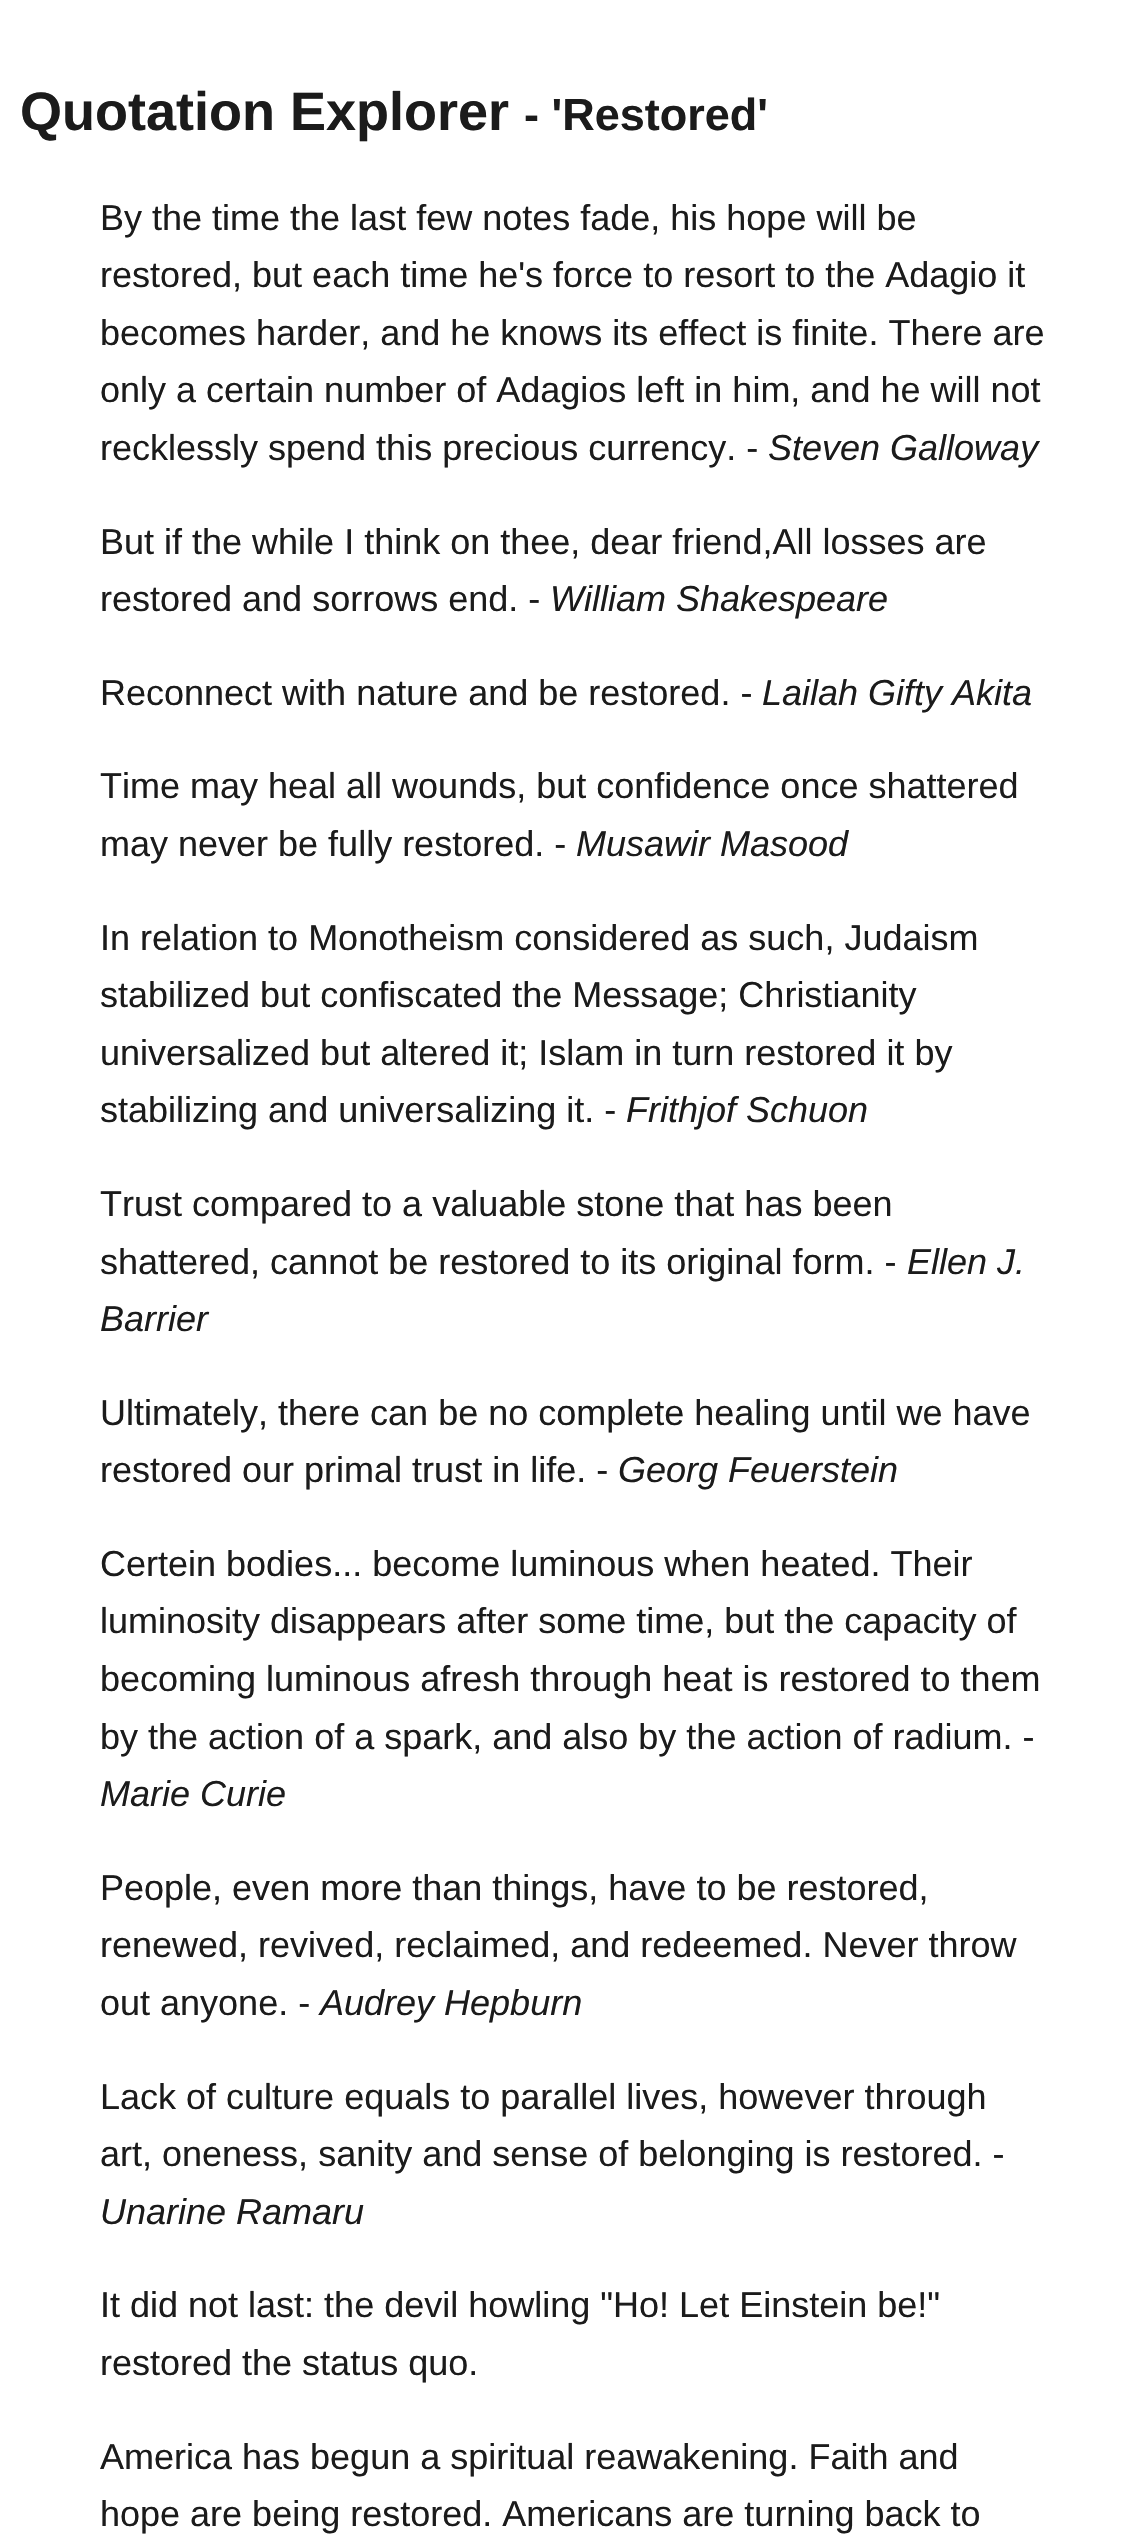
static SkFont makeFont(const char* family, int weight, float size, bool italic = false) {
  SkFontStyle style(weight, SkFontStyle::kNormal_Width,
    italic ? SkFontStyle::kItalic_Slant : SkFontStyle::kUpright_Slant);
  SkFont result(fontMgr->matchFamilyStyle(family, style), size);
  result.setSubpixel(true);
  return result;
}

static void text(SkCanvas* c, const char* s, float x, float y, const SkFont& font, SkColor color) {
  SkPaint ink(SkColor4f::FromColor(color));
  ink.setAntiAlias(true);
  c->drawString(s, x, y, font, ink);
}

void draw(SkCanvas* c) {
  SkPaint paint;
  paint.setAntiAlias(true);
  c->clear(0xffffffff);
  SkFont face1 = makeFont("Liberation Sans", 700, 54);
  text(c, "Quotation Explorer", 20, 130, face1, 0xff1b1b1b);
  SkFont face2 = makeFont("Liberation Sans", 700, 45);
  text(c, "- 'Restored'", 524, 130, face2, 0xff1b1b1b);
  SkFont face3 = makeFont("Liberation Sans", 400, 36);
  text(c, "By the time the last few notes fade, his hope will be", 100, 230, face3, 0xff1b1b1b);
  text(c, "restored, but each time he's force to resort to the Adagio it", 100, 287, face3, 0xff1b1b1b);
  text(c, "becomes harder, and he knows its effect is finite. There are", 100, 345, face3, 0xff1b1b1b);
  text(c, "only a certain number of Adagios left in him, and he will not", 100, 402, face3, 0xff1b1b1b);
  text(c, "recklessly spend this precious currency. -", 100, 460, face3, 0xff1b1b1b);
  SkFont face4 = makeFont("Liberation Sans", 400, 36, true);
  text(c, "Steven Galloway", 768, 460, face4, 0xff1b1b1b);
  text(c, "But if the while I think on thee, dear friend,All losses are", 100, 554, face3, 0xff1b1b1b);
  text(c, "restored and sorrows end. -", 100, 611, face3, 0xff1b1b1b);
  text(c, "William Shakespeare", 550, 611, face4, 0xff1b1b1b);
  text(c, "Reconnect with nature and be restored. -", 100, 705, face3, 0xff1b1b1b);
  text(c, "Lailah Gifty Akita", 762, 705, face4, 0xff1b1b1b);
  text(c, "Time may heal all wounds, but confidence once shattered", 100, 798, face3, 0xff1b1b1b);
  text(c, "may never be fully restored. -", 100, 856, face3, 0xff1b1b1b);
  text(c, "Musawir Masood", 576, 856, face4, 0xff1b1b1b);
  text(c, "In relation to Monotheism considered as such, Judaism", 100, 950, face3, 0xff1b1b1b);
  text(c, "stabilized but confiscated the Message; Christianity", 100, 1007, face3, 0xff1b1b1b);
  text(c, "universalized but altered it; Islam in turn restored it by", 100, 1065, face3, 0xff1b1b1b);
  text(c, "stabilizing and universalizing it. -", 100, 1122, face3, 0xff1b1b1b);
  text(c, "Frithjof Schuon", 626, 1122, face4, 0xff1b1b1b);
  text(c, "Trust compared to a valuable stone that has been", 100, 1216, face3, 0xff1b1b1b);
  text(c, "shattered, cannot be restored to its original form. -", 100, 1274, face3, 0xff1b1b1b);
  text(c, "Ellen J.", 907, 1274, face4, 0xff1b1b1b);
  text(c, "Barrier", 100, 1331, face4, 0xff1b1b1b);
  text(c, "Ultimately, there can be no complete healing until we have", 100, 1425, face3, 0xff1b1b1b);
  text(c, "restored our primal trust in life. -", 100, 1482, face3, 0xff1b1b1b);
  text(c, "Georg Feuerstein", 618, 1482, face4, 0xff1b1b1b);
  text(c, "Certein bodies... become luminous when heated. Their", 100, 1576, face3, 0xff1b1b1b);
  text(c, "luminosity disappears after some time, but the capacity of", 100, 1633, face3, 0xff1b1b1b);
  text(c, "becoming luminous afresh through heat is restored to them", 100, 1691, face3, 0xff1b1b1b);
  text(c, "by the action of a spark, and also by the action of radium. -", 100, 1749, face3, 0xff1b1b1b);
  text(c, "Marie Curie", 100, 1806, face4, 0xff1b1b1b);
  text(c, "People, even more than things, have to be restored,", 100, 1900, face3, 0xff1b1b1b);
  text(c, "renewed, revived, reclaimed, and redeemed. Never throw", 100, 1957, face3, 0xff1b1b1b);
  text(c, "out anyone. -", 100, 2015, face3, 0xff1b1b1b);
  text(c, "Audrey Hepburn", 320, 2015, face4, 0xff1b1b1b);
  text(c, "Lack of culture equals to parallel lives, however through", 100, 2109, face3, 0xff1b1b1b);
  text(c, "art, oneness, sanity and sense of belonging is restored. -", 100, 2166, face3, 0xff1b1b1b);
  text(c, "Unarine Ramaru", 100, 2224, face4, 0xff1b1b1b);
  text(c, "It did not last: the devil howling \"Ho! Let Einstein be!\"", 100, 2317, face3, 0xff1b1b1b);
  text(c, "restored the status quo.", 100, 2375, face3, 0xff1b1b1b);
  text(c, "America has begun a spiritual reawakening. Faith and", 100, 2469, face3, 0xff1b1b1b);
  text(c, "hope are being restored. Americans are turning back to", 100, 2526, face3, 0xff1b1b1b);
}
